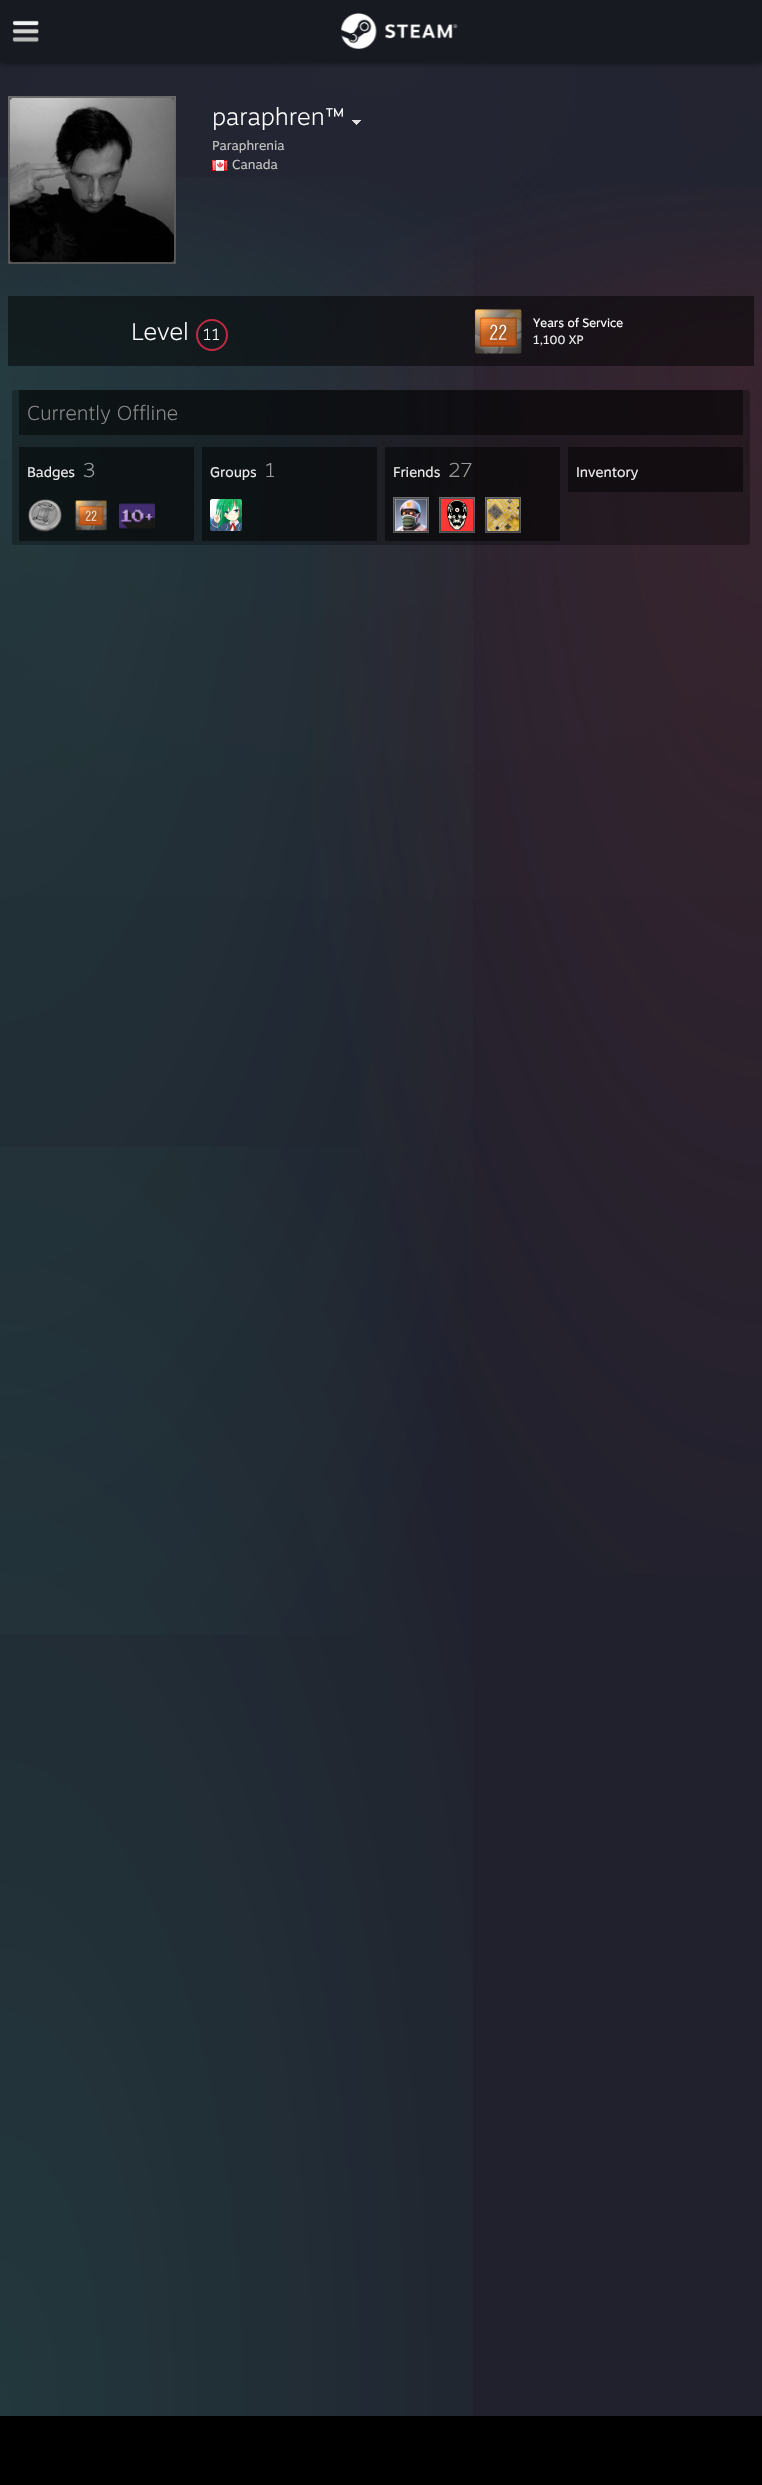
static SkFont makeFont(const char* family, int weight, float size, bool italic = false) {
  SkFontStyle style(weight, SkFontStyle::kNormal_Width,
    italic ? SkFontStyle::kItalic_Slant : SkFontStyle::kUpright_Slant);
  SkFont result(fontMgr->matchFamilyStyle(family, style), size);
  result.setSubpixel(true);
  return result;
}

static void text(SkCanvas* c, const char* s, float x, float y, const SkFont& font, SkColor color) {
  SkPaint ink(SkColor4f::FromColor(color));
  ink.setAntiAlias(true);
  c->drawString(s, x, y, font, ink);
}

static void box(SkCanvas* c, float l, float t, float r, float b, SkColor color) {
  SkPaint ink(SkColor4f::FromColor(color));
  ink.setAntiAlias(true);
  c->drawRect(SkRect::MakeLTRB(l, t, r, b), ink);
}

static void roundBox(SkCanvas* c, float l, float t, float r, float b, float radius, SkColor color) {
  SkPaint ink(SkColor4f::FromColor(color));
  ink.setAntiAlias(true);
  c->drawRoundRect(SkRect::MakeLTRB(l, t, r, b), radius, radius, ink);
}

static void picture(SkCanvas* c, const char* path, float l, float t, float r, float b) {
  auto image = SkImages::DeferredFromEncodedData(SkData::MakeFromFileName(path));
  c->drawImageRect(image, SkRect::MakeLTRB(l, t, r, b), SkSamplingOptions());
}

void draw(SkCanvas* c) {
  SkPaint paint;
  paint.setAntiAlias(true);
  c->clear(0xff000000);
  picture(c, "img_03.png", 0, 62, 762, 898);
  box(c, 0, 62, 762, 366, 0xed222330);
  paint.setColor(0xbf000000);
  paint.setMaskFilter(SkMaskFilter::MakeBlur(kNormal_SkBlurStyle, 3.5f));
  c->drawRect(SkRect::MakeLTRB(0, 0, 762, 62), paint);
  paint.setMaskFilter(nullptr);
  box(c, 0, 0, 762, 62, 0xff171a21);
  picture(c, "img_01.png", 12, 20, 39, 42);
  picture(c, "img_02.png", 341, 13, 458, 49);
  {
    const SkColor colors[] = {0x1a32ffc1, 0x0032ffc1};
    const float stops[] = {0, 0.56f};
    SkMatrix m = SkMatrix::Translate(0, 366).preScale(1078, 430);
    paint.setShader(SkGradientShader::MakeRadial({0, 0}, 1, colors, stops, 2, SkTileMode::kClamp, 0, &m));
    paint.setAlpha(255);
  }
  c->drawRect(SkRect::MakeLTRB(0, 177, 473, 366), paint);
  {
    const SkColor colors[] = {0x4d6d262c, 0x006d262c};
    const float stops[] = {0, 0.66f};
    SkMatrix m = SkMatrix::Translate(762, 366).preScale(762, 304);
    paint.setShader(SkGradientShader::MakeRadial({0, 0}, 1, colors, stops, 2, SkTileMode::kClamp, 0, &m));
    paint.setAlpha(255);
  }
  c->drawRect(SkRect::MakeLTRB(313, 187, 762, 366), paint);
  {
    const SkColor colors[] = {0xff6a6a6a, 0xff555555};
    const float stops[] = {0.05f, 0.95f};
    const SkPoint ends[] = {{92, 96}, {92, 264}};
    paint.setShader(SkGradientShader::MakeLinear(ends, colors, stops, 2, SkTileMode::kClamp));
    paint.setAlpha(255);
  }
  c->drawRect(SkRect::MakeLTRB(8, 96, 176, 264), paint);
  picture(c, "img_04.png", 10, 98, 174, 262);
  SkFont face1 = makeFont("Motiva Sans", 100, 24);
  text(c, "paraphren™", 212, 125, face1, 0xffffffff);
  picture(c, "img_05.png", 352, 120, 361, 125);
  SkFont face2 = makeFont("Motiva Sans", 400, 13);
  text(c, "Paraphrenia", 212, 150, face2, 0xffc4c4c4);
  picture(c, "img_06.png", 212, 160, 228, 171);
  text(c, "Canada", 232, 169, face2, 0xffc4c4c4);
  box(c, 8, 296, 754, 366, 0x80000000);
  text(c, "Level", 131, 340, face1, 0xffffffff);
  paint.setStyle(SkPaint::kStroke_Style);
  paint.setStrokeWidth(2);
  paint.setShader(nullptr);
  paint.setColor(0xffc02942);
  c->drawCircle(212, 335, 15, paint);
  SkFont face3 = makeFont("Motiva Sans", 100, 16);
  text(c, "11", 203, 340, face3, 0xffffffff);
  picture(c, "img_07.png", 474, 309, 522, 354);
  SkFont face4 = makeFont("Motiva Sans", 400, 12);
  text(c, "Years of Service", 533, 327, face4, 0xffffffff);
  text(c, "1,100 XP", 533, 344, face4, 0xffebebeb);
  box(c, 0, 366, 762, 2416, 0xed222330);
  paint.setStyle(SkPaint::kFill_Style);
  {
    const SkColor colors[] = {0x1a32ffc1, 0x0032ffc1};
    const float stops[] = {0, 0.56f};
    SkMatrix m = SkMatrix::Translate(0, 2416).preScale(1078, 2899);
    paint.setShader(SkGradientShader::MakeRadial({0, 0}, 1, colors, stops, 2, SkTileMode::kClamp, 0, &m));
    paint.setAlpha(255);
  }
  c->drawRect(SkRect::MakeLTRB(0, 1147, 473, 2416), paint);
  {
    const SkColor colors[] = {0x1a32ffc1, 0x0032ffc1};
    const float stops[] = {0, 0.56f};
    SkMatrix m = SkMatrix::Translate(0, 366).preScale(1078, 2899);
    paint.setShader(SkGradientShader::MakeRadial({0, 0}, 1, colors, stops, 2, SkTileMode::kClamp, 0, &m));
    paint.setAlpha(255);
  }
  c->drawRect(SkRect::MakeLTRB(0, 366, 473, 1635), paint);
  {
    const SkColor colors[] = {0x4d6d262c, 0x006d262c};
    const float stops[] = {0, 0.66f};
    SkMatrix m = SkMatrix::Translate(762, 366).preScale(762, 2050);
    paint.setShader(SkGradientShader::MakeRadial({0, 0}, 1, colors, stops, 2, SkTileMode::kClamp, 0, &m));
    paint.setAlpha(255);
  }
  c->drawRect(SkRect::MakeLTRB(313, 366, 762, 1574), paint);
  roundBox(c, 12, 390, 750, 545, 3, 0x4d000000);
  box(c, 19, 390, 743, 435, 0x80000000);
  SkFont face5 = makeFont("Motiva Sans", 100, 20);
  text(c, "Currently Offline", 27, 420, face5, 0xff898989);
  box(c, 19, 447, 194, 541, 0x80000000);
  SkFont face6 = makeFont("Motiva Sans", 400, 14);
  text(c, "Badges", 27, 477, face6, 0xffebebeb);
  text(c, "3", 83, 477, face5, 0xff9b9b9b);
  picture(c, "img_08.png", 28, 499, 62, 532);
  picture(c, "img_09.png", 75, 500, 107, 531);
  picture(c, "img_10.png", 119, 503, 155, 529);
  box(c, 202, 447, 377, 541, 0x80000000);
  text(c, "Groups", 210, 477, face6, 0xffebebeb);
  text(c, "1", 265, 477, face5, 0xff9b9b9b);
  picture(c, "img_11.png", 210, 499, 242, 531);
  box(c, 385, 447, 560, 541, 0x80000000);
  text(c, "Friends", 393, 477, face6, 0xffebebeb);
  text(c, "27", 448, 477, face5, 0xff9b9b9b);
  {
    const SkColor colors[] = {0xff6a6a6a, 0xff555555};
    const float stops[] = {0.05f, 0.95f};
    const SkPoint ends[] = {{411, 497}, {411, 533}};
    paint.setShader(SkGradientShader::MakeLinear(ends, colors, stops, 2, SkTileMode::kClamp));
    paint.setAlpha(255);
  }
  c->drawRect(SkRect::MakeLTRB(393, 497, 429, 533), paint);
  {
    const SkColor colors[] = {0xff515151, 0xff474747};
    const float stops[] = {0.05f, 0.95f};
    const SkPoint ends[] = {{411, 498}, {411, 532}};
    paint.setShader(SkGradientShader::MakeLinear(ends, colors, stops, 2, SkTileMode::kClamp));
    paint.setAlpha(255);
  }
  c->drawRect(SkRect::MakeLTRB(394, 498, 428, 532), paint);
  picture(c, "img_12.png", 395, 499, 427, 531);
  {
    const SkColor colors[] = {0xff6a6a6a, 0xff555555};
    const float stops[] = {0.05f, 0.95f};
    const SkPoint ends[] = {{457, 497}, {457, 533}};
    paint.setShader(SkGradientShader::MakeLinear(ends, colors, stops, 2, SkTileMode::kClamp));
    paint.setAlpha(255);
  }
  c->drawRect(SkRect::MakeLTRB(439, 497, 475, 533), paint);
  {
    const SkColor colors[] = {0xff515151, 0xff474747};
    const float stops[] = {0.05f, 0.95f};
    const SkPoint ends[] = {{457, 498}, {457, 532}};
    paint.setShader(SkGradientShader::MakeLinear(ends, colors, stops, 2, SkTileMode::kClamp));
    paint.setAlpha(255);
  }
  c->drawRect(SkRect::MakeLTRB(440, 498, 474, 532), paint);
  picture(c, "img_13.png", 441, 499, 473, 531);
  {
    const SkColor colors[] = {0xff6a6a6a, 0xff555555};
    const float stops[] = {0.05f, 0.95f};
    const SkPoint ends[] = {{503, 497}, {503, 533}};
    paint.setShader(SkGradientShader::MakeLinear(ends, colors, stops, 2, SkTileMode::kClamp));
    paint.setAlpha(255);
  }
  c->drawRect(SkRect::MakeLTRB(485, 497, 521, 533), paint);
  {
    const SkColor colors[] = {0xff515151, 0xff474747};
    const float stops[] = {0.05f, 0.95f};
    const SkPoint ends[] = {{503, 498}, {503, 532}};
    paint.setShader(SkGradientShader::MakeLinear(ends, colors, stops, 2, SkTileMode::kClamp));
    paint.setAlpha(255);
  }
  c->drawRect(SkRect::MakeLTRB(486, 498, 520, 532), paint);
  picture(c, "img_14.png", 487, 499, 519, 531);
  box(c, 568, 447, 743, 492, 0x80000000);
  text(c, "Inventory", 576, 477, face6, 0xffebebeb);
}
